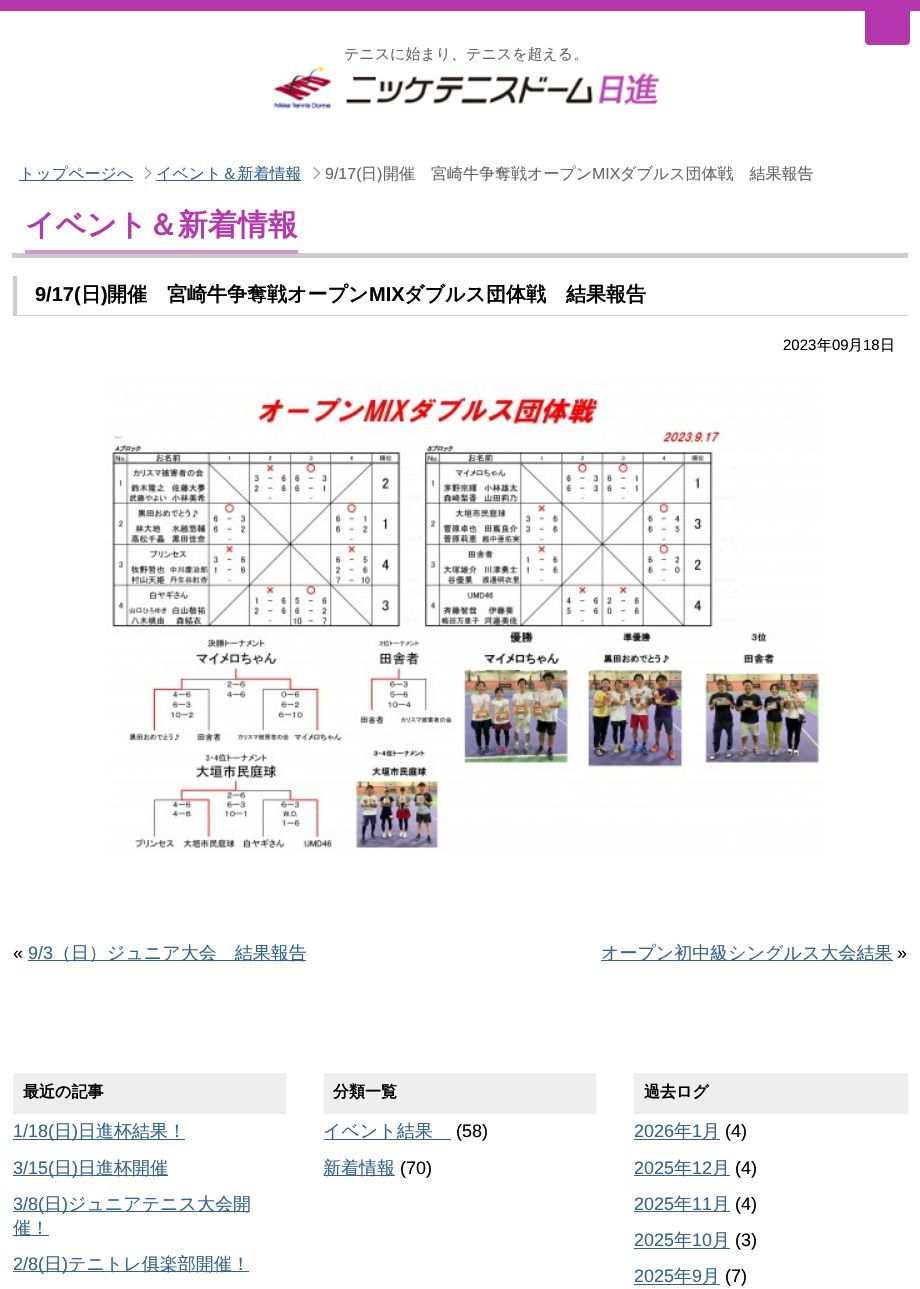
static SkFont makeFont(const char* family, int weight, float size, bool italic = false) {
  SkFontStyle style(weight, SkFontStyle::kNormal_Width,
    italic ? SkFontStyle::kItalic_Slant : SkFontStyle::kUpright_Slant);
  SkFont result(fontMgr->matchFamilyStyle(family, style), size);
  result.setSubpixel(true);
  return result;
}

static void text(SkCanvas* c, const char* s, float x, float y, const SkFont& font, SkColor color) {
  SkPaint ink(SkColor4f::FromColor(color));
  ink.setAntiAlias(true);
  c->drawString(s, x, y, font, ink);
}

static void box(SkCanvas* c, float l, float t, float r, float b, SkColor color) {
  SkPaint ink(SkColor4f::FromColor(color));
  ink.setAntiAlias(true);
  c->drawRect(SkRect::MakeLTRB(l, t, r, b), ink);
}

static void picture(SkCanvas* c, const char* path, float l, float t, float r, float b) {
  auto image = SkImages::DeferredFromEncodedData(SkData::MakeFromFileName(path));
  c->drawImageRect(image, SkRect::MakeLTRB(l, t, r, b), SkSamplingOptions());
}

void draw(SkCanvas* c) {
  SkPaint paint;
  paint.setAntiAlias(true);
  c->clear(0xffffffff);
  box(c, 0, 0, 920, 11, 0xffb636ae);
  paint.setColor(0xffb636ae);
  c->drawPath(SkPathBuilder().moveTo(865, 11).lineTo(910, 11).lineTo(910, 41).cubicTo(910, 43, 908, 45, 906, 45).lineTo(869, 45).cubicTo(867, 45, 865, 43, 865, 41).close().detach(), paint);
  SkFont face1 = makeFont("WenQuanYi Zen Hei", 500, 15);
  text(c, "テニスに始まり、テニスを超える。", 344, 59, face1, 0xff666666);
  picture(c, "img_01.png", 273, 66, 660, 109);
  box(c, 19, 180, 133, 181, 0xff34628f);
  SkFont face2 = makeFont("WenQuanYi Zen Hei", 500, 16);
  text(c, "トップページへ", 19, 179, face2, 0xff34628f);
  picture(c, "img_02.png", 145, 167, 152, 179);
  box(c, 156, 180, 301, 181, 0xff34628f);
  text(c, "イベント＆新着情報", 156, 179, face2, 0xff34628f);
  picture(c, "img_03.png", 313, 167, 320, 179);
  SkFont face3 = makeFont("Liberation Sans", 400, 16);
  text(c, "9/17(", 325, 179, face3, 0xff666666);
  text(c, "日", 361, 179, face2, 0xff666666);
  text(c, ")", 377, 179, face3, 0xff666666);
  text(c, "開催　宮崎牛争奪戦オープン", 383, 179, face2, 0xff666666);
  text(c, "MIX", 592, 179, face3, 0xff666666);
  text(c, "ダブルス団体戦　結果報告", 620, 179, face2, 0xff666666);
  box(c, 12, 253, 908, 258, 0xffcccccc);
  SkFont face4 = makeFont("WenQuanYi Zen Hei", 700, 30);
  text(c, "イベント＆新着情報", 25, 235, face4, 0xffb636ae);
  box(c, 25, 250, 298, 254, 0xffcd9cca);
  box(c, 13, 315, 908, 316, 0xffcccccc);
  box(c, 13, 276, 17, 316, 0xffcccccc);
  SkFont face5 = makeFont("Liberation Sans", 700, 20);
  text(c, "9/17(", 35, 301, face5, 0xff000000);
  SkFont face6 = makeFont("WenQuanYi Zen Hei", 700, 20);
  text(c, "日", 81, 301, face6, 0xff000000);
  text(c, ")", 101, 301, face5, 0xff000000);
  text(c, "開催　宮崎牛争奪戦オープン", 107, 301, face6, 0xff000000);
  text(c, "MIX", 369, 301, face5, 0xff000000);
  text(c, "ダブルス団体戦　結果報告", 404, 301, face6, 0xff000000);
  SkFont face7 = makeFont("Liberation Sans", 400, 15);
  text(c, "2023", 783, 350, face7, 0xff000000);
  text(c, "年", 817, 350, face1, 0xff000000);
  text(c, "09", 832, 350, face7, 0xff000000);
  text(c, "月", 848, 350, face1, 0xff000000);
  text(c, "18", 863, 350, face7, 0xff000000);
  text(c, "日", 880, 350, face1, 0xff000000);
  picture(c, "img_04.png", 105, 381, 825, 851);
  SkFont face8 = makeFont("Liberation Sans", 400, 18);
  text(c, "«", 13, 959, face8, 0xff000000);
  text(c, "9/3", 28, 959, face8, 0xff34628f);
  box(c, 28, 960, 306, 961, 0xff34628f);
  SkFont face9 = makeFont("WenQuanYi Zen Hei", 500, 18);
  text(c, "（日）ジュニア大会　結果報告", 53, 959, face9, 0xff34628f);
  box(c, 601, 960, 893, 961, 0xff34628f);
  text(c, "オープン初中級シングルス大会結果", 601, 959, face9, 0xff34628f);
  text(c, "»", 897, 959, face8, 0xff000000);
  box(c, 13, 1073, 286, 1114, 0xffeeeeee);
  SkFont face10 = makeFont("WenQuanYi Zen Hei", 700, 16);
  text(c, "最近の記事", 23, 1097, face10, 0xff000000);
  box(c, 13, 1139, 185, 1140, 0xff34628f);
  text(c, "1/18(", 13, 1137, face8, 0xff34628f);
  text(c, "日", 54, 1137, face9, 0xff34628f);
  text(c, ")", 72, 1137, face8, 0xff34628f);
  text(c, "日進杯結果！", 78, 1137, face9, 0xff34628f);
  box(c, 13, 1175, 168, 1176, 0xff34628f);
  text(c, "3/15(", 13, 1174, face8, 0xff34628f);
  text(c, "日", 54, 1174, face9, 0xff34628f);
  text(c, ")", 72, 1174, face8, 0xff34628f);
  text(c, "日進杯開催", 78, 1174, face9, 0xff34628f);
  box(c, 13, 1211, 250, 1212, 0xff34628f);
  text(c, "3/8(", 13, 1210, face8, 0xff34628f);
  text(c, "日", 44, 1210, face9, 0xff34628f);
  text(c, ")", 62, 1210, face8, 0xff34628f);
  text(c, "ジュニアテニス大会開", 68, 1210, face9, 0xff34628f);
  box(c, 13, 1235, 49, 1236, 0xff34628f);
  text(c, "催！", 13, 1234, face9, 0xff34628f);
  box(c, 13, 1271, 249, 1272, 0xff34628f);
  text(c, "2/8(", 13, 1270, face8, 0xff34628f);
  text(c, "日", 44, 1270, face9, 0xff34628f);
  text(c, ")", 62, 1270, face8, 0xff34628f);
  text(c, "テニトレ俱楽部開催！", 68, 1270, face9, 0xff34628f);
  box(c, 324, 1073, 596, 1114, 0xffeeeeee);
  text(c, "分類一覧", 333, 1097, face10, 0xff000000);
  box(c, 324, 1139, 451, 1140, 0xff34628f);
  text(c, "イベント結果", 323, 1137, face9, 0xff34628f);
  text(c, "(58)", 456, 1137, face8, 0xff000000);
  box(c, 324, 1175, 395, 1176, 0xff34628f);
  text(c, "新着情報", 323, 1174, face9, 0xff34628f);
  text(c, "(70)", 400, 1174, face8, 0xff000000);
  box(c, 634, 1073, 908, 1114, 0xffeeeeee);
  text(c, "過去ログ", 644, 1097, face10, 0xff000000);
  text(c, "2026", 634, 1137, face8, 0xff34628f);
  box(c, 634, 1139, 720, 1140, 0xff34628f);
  text(c, "年", 674, 1137, face9, 0xff34628f);
  text(c, "1", 692, 1137, face8, 0xff34628f);
  text(c, "月", 702, 1137, face9, 0xff34628f);
  text(c, "(4)", 725, 1137, face8, 0xff000000);
  text(c, "2025", 634, 1174, face8, 0xff34628f);
  box(c, 634, 1175, 730, 1176, 0xff34628f);
  text(c, "年", 674, 1174, face9, 0xff34628f);
  text(c, "12", 692, 1174, face8, 0xff34628f);
  text(c, "月", 712, 1174, face9, 0xff34628f);
  text(c, "(4)", 735, 1174, face8, 0xff000000);
  text(c, "2025", 634, 1210, face8, 0xff34628f);
  box(c, 634, 1211, 730, 1212, 0xff34628f);
  text(c, "年", 674, 1210, face9, 0xff34628f);
  text(c, "11", 692, 1210, face8, 0xff34628f);
  text(c, "月", 712, 1210, face9, 0xff34628f);
  text(c, "(4)", 735, 1210, face8, 0xff000000);
  text(c, "2025", 634, 1246, face8, 0xff34628f);
  box(c, 634, 1248, 730, 1249, 0xff34628f);
  text(c, "年", 674, 1246, face9, 0xff34628f);
  text(c, "10", 692, 1246, face8, 0xff34628f);
  text(c, "月", 712, 1246, face9, 0xff34628f);
  text(c, "(3)", 735, 1246, face8, 0xff000000);
  text(c, "2025", 634, 1282, face8, 0xff34628f);
  box(c, 634, 1284, 720, 1285, 0xff34628f);
  text(c, "年", 674, 1282, face9, 0xff34628f);
  text(c, "9", 692, 1282, face8, 0xff34628f);
  text(c, "月", 702, 1282, face9, 0xff34628f);
  text(c, "(7)", 725, 1282, face8, 0xff000000);
}
